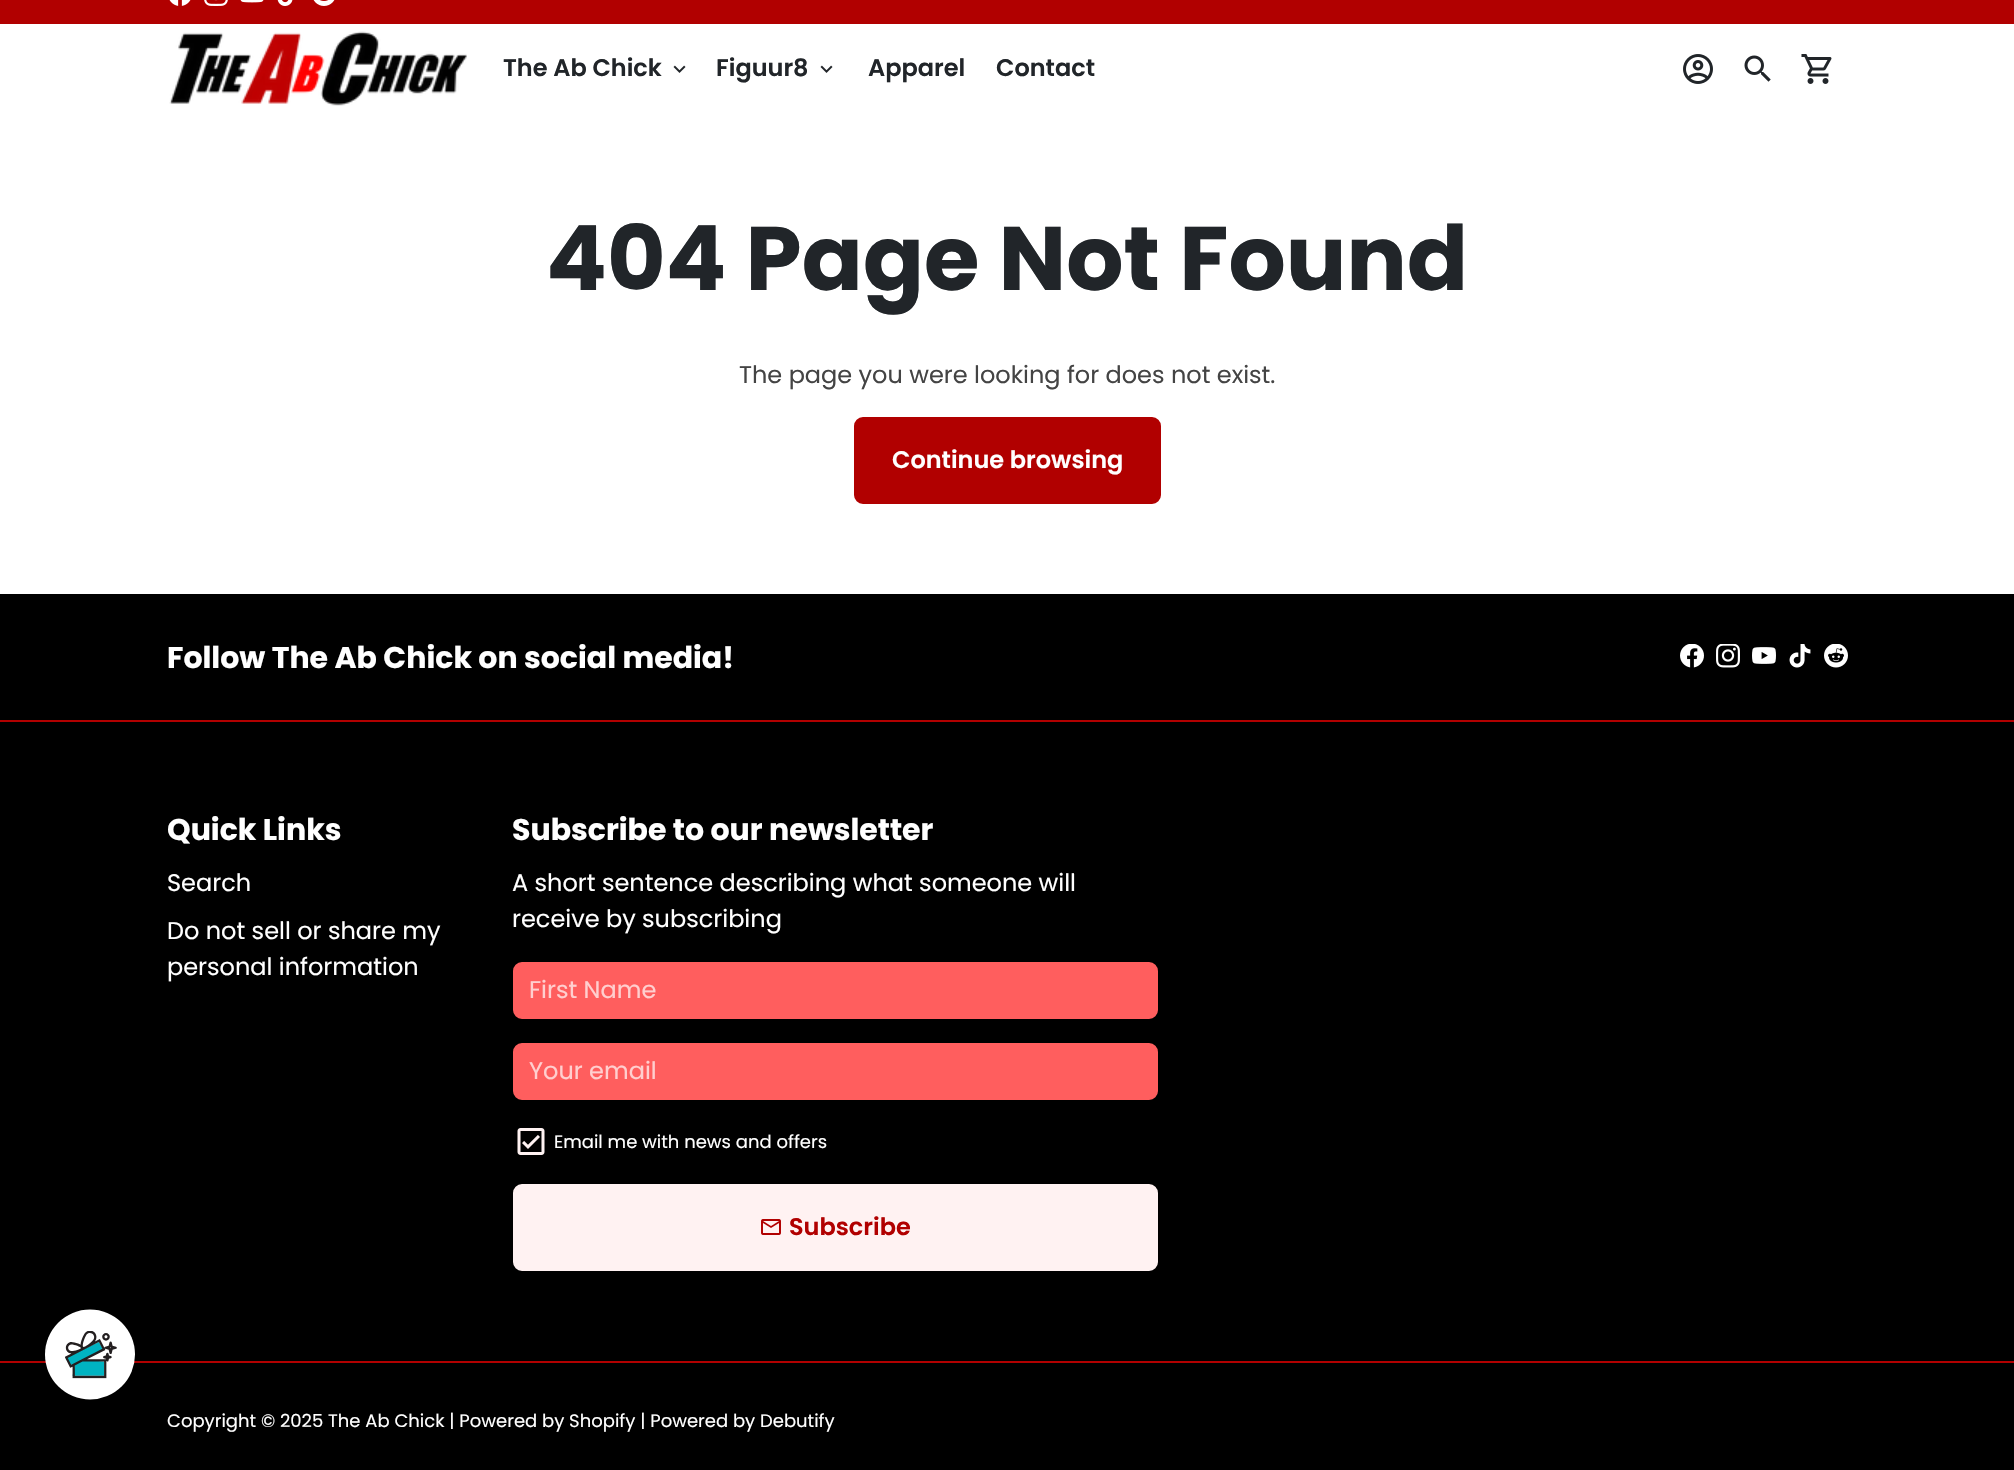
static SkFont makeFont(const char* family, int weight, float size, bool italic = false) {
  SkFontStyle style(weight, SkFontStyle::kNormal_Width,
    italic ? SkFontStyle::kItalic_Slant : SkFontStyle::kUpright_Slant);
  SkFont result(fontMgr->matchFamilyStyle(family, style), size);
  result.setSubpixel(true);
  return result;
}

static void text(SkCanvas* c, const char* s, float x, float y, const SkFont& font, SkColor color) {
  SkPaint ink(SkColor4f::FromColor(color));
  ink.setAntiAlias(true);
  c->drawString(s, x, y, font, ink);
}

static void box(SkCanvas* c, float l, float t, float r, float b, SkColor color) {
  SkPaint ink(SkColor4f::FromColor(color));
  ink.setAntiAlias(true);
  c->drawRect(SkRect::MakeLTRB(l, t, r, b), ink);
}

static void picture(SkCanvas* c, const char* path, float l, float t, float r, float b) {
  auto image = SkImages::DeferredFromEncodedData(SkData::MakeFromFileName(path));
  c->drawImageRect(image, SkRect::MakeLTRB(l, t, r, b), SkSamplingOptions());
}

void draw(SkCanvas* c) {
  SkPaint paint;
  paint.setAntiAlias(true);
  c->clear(0xffffffff);
  box(c, 0, 594, 2014, 1470, 0xff000000);
  box(c, 0, 1361, 2014, 1363, 0xffb10000);
  picture(c, "img_01.png", 41, 1309, 138, 1400);
  box(c, 0, 0, 2014, 24, 0xffb10000);
  picture(c, "img_02.png", 169, 0, 191, 6);
  picture(c, "img_03.png", 204, 0, 228, 6);
  picture(c, "img_04.png", 240, 0, 264, 3);
  picture(c, "img_05.png", 277, 0, 293, 6);
  picture(c, "img_06.png", 313, 0, 335, 6);
  picture(c, "img_07.png", 169, 31, 467, 106);
  SkFont face1 = makeFont("Poppins", 600, 24);
  text(c, "The Ab Chick", 503, 76, face1, 0xff212529);
  picture(c, "img_08.png", 673, 65, 686, 73);
  text(c, "Figuur8", 716, 76, face1, 0xff212529);
  picture(c, "img_08.png", 820, 65, 833, 73);
  text(c, "Apparel", 868, 76, face1, 0xff212529);
  text(c, "Contact", 996, 76, face1, 0xff212529);
  picture(c, "img_09.png", 1683, 54, 1713, 84);
  picture(c, "img_10.png", 1744, 55, 1771, 82);
  picture(c, "img_11.png", 1801, 54, 1832, 84);
  SkFont face2 = makeFont("Poppins", 700, 90);
  text(c, "404 Page Not Found", 546, 290, face2, 0xff212529);
  SkFont face3 = makeFont("Poppins", 400, 24);
  text(c, "The page you were looking for does not exist.", 739, 383, face3, 0xff444444);
  paint.setColor(0xffb10000);
  c->drawRoundRect(SkRect::MakeLTRB(855, 418, 1160, 503), 8, 8, paint);
  paint.setStyle(SkPaint::kStroke_Style);
  paint.setStrokeWidth(2);
  c->drawRoundRect(SkRect::MakeLTRB(855, 418, 1160, 503), 8, 8, paint);
  text(c, "Continue browsing", 892, 468, face1, 0xffffffff);
  box(c, 0, 720, 2014, 722, 0xffb10000);
  SkFont face4 = makeFont("Poppins", 700, 30);
  text(c, "Follow The Ab Chick on social media!", 167, 668, face4, 0xffffffff);
  picture(c, "img_12.png", 1680, 644, 1704, 668);
  picture(c, "img_13.png", 1716, 644, 1740, 668);
  picture(c, "img_14.png", 1752, 647, 1776, 664);
  picture(c, "img_15.png", 1789, 644, 1811, 668);
  picture(c, "img_16.png", 1824, 644, 1848, 668);
  text(c, "Quick Links", 167, 840, face4, 0xffffffff);
  text(c, "Search", 167, 891, face3, 0xffffffff);
  text(c, "Do not sell or share my", 167, 939, face3, 0xffffffff);
  text(c, "personal information", 167, 975, face3, 0xffffffff);
  text(c, "Subscribe to our newsletter", 512, 840, face4, 0xffffffff);
  text(c, "A short sentence describing what someone will", 512, 891, face3, 0xffffffff);
  text(c, "receive by subscribing", 512, 927, face3, 0xffffffff);
  paint.setStyle(SkPaint::kFill_Style);
  paint.setColor(0xffff5e5e);
  c->drawRoundRect(SkRect::MakeLTRB(514, 963, 1157, 1018), 8, 8, paint);
  paint.setStyle(SkPaint::kStroke_Style);
  c->drawRoundRect(SkRect::MakeLTRB(514, 963, 1157, 1018), 8, 8, paint);
  text(c, "First Name", 529, 998, face3, 0xffffcfcf);
  paint.setStyle(SkPaint::kFill_Style);
  c->drawRoundRect(SkRect::MakeLTRB(514, 1044, 1157, 1099), 8, 8, paint);
  paint.setStyle(SkPaint::kStroke_Style);
  c->drawRoundRect(SkRect::MakeLTRB(514, 1044, 1157, 1099), 8, 8, paint);
  text(c, "Your email", 529, 1079, face3, 0xffffcfcf);
  picture(c, "img_17.png", 517, 1128, 545, 1155);
  SkFont face5 = makeFont("Poppins", 400, 18);
  text(c, "Email me with news and offers", 554, 1148, face5, 0xffffffff);
  paint.setStyle(SkPaint::kFill_Style);
  paint.setColor(0xfffff2f2);
  c->drawRoundRect(SkRect::MakeLTRB(514, 1185, 1157, 1270), 8, 8, paint);
  paint.setStyle(SkPaint::kStroke_Style);
  c->drawRoundRect(SkRect::MakeLTRB(514, 1185, 1157, 1270), 8, 8, paint);
  picture(c, "img_18.png", 761, 1219, 781, 1235);
  text(c, "Subscribe", 789, 1235, face1, 0xffb10000);
  text(c, "Copyright © 2025 The Ab Chick | Powered by Shopify | Powered by Debutify", 167, 1427, face5, 0xffffffff);
}
